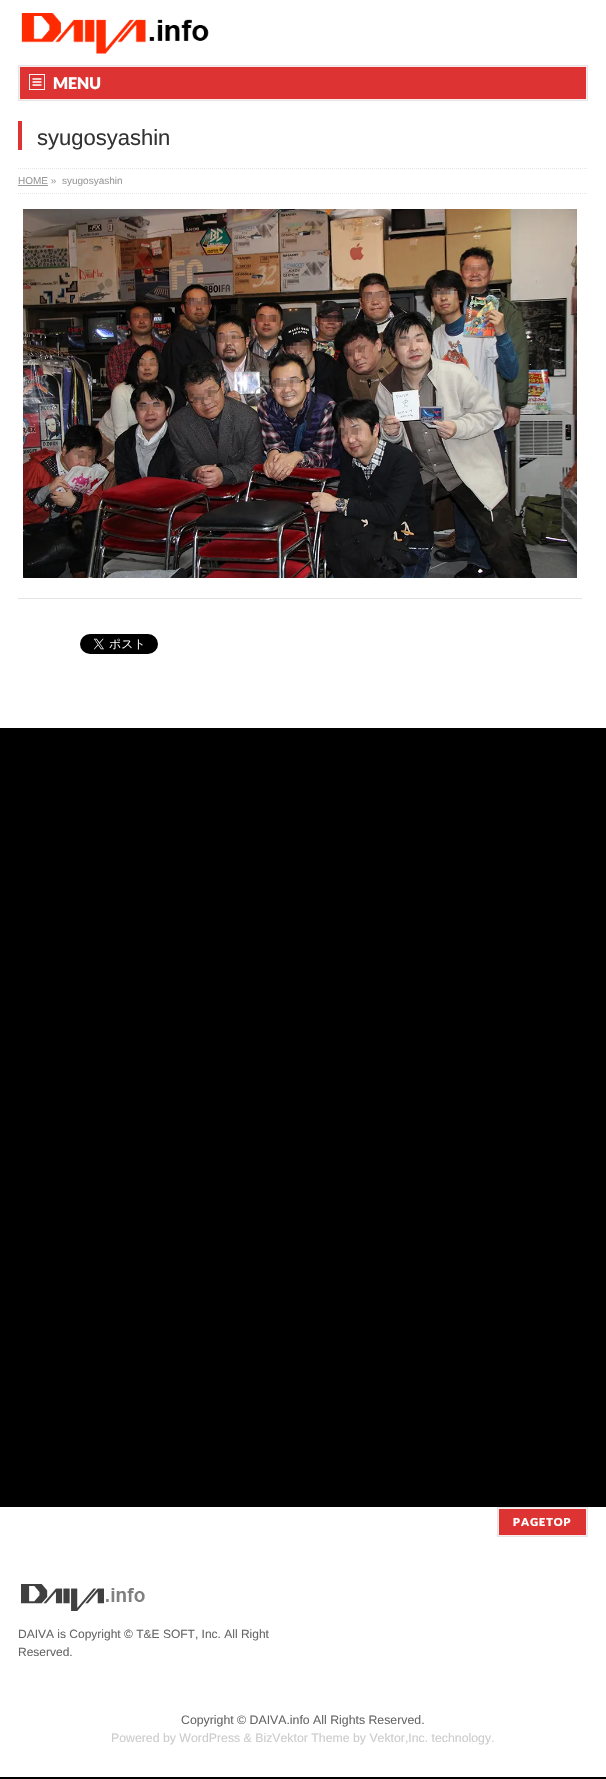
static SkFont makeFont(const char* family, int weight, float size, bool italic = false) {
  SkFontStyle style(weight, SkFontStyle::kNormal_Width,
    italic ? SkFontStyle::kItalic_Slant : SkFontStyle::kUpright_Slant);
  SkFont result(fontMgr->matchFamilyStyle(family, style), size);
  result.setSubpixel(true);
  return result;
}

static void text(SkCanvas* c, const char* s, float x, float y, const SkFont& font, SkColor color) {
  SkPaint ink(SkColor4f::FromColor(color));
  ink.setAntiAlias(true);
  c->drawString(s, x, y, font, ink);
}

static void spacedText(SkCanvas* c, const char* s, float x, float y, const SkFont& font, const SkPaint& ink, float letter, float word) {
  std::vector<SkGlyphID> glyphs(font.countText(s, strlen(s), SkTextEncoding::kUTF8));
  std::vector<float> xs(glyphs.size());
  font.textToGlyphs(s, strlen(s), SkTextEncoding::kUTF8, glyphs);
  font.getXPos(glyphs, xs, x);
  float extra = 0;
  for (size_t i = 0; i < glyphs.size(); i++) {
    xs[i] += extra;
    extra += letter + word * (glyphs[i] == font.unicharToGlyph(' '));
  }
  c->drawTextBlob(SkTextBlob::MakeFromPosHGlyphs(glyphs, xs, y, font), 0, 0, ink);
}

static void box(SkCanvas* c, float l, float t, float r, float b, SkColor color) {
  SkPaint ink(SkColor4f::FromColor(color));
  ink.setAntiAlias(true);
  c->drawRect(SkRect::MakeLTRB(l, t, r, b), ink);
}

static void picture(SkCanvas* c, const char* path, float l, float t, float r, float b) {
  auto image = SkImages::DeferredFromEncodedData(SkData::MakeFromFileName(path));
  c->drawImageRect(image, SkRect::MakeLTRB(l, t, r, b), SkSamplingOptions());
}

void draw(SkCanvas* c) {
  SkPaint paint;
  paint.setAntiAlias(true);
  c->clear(0xff000000);
  box(c, 0, 0, 606, 101, 0xffffffff);
  picture(c, "img_01.png", 21, 13, 209, 54);
  paint.setColor(0xffdd3333);
  c->drawRect(SkRect::MakeLTRB(19.5f, 66.5f, 586.5f, 99.5f), paint);
  paint.setStyle(SkPaint::kStroke_Style);
  paint.setStrokeWidth(1);
  paint.setColor(0xfffcebeb);
  c->drawRect(SkRect::MakeLTRB(19.5f, 66.5f, 586.5f, 99.5f), paint);
  paint.setColor(0xffe5e5e5);
  c->drawRect(SkRect::MakeLTRB(18.5f, 65.5f, 587.5f, 100.5f), paint);
  picture(c, "img_02.png", 29, 74, 45, 90);
  SkFont face1 = makeFont("Lato", 900, 16);
  text(c, "MENU", 53, 89, face1, 0xffffffff);
  box(c, 0, 101, 606, 168, 0xffffffff);
  box(c, 18, 121, 22, 150, 0xffdd3333);
  SkFont face2 = makeFont("Liberation Sans", 400, 22);
  text(c, "syugosyashin", 37, 145, face2, 0xff333333);
  box(c, 0, 168, 606, 728, 0xffffffff);
  picture(c, "img_03.png", 23, 209, 577, 578);
  box(c, 18, 598, 582, 599, 0xffe5e5e5);
  picture(c, "img_04.png", 80, 634, 158, 654);
  paint.setPathEffect(SkDashPathEffect::Make({{1, 1}}, 0));
  c->drawPath(SkPathBuilder().moveTo(18, 168.5f).lineTo(588, 168.5f).detach(), paint);
  paint.setPathEffect(nullptr);
  paint.setPathEffect(SkDashPathEffect::Make({{1, 1}}, 0));
  c->drawPath(SkPathBuilder().moveTo(18, 193.5f).lineTo(588, 193.5f).detach(), paint);
  paint.setPathEffect(nullptr);
  SkFont face3 = makeFont("Liberation Sans", 400, 10);
  text(c, "HOME »", 18, 184, face3, 0xff999999);
  box(c, 18, 185, 48, 186, 0xff999999);
  text(c, "syugosyashin", 62, 184, face3, 0xff999999);
  box(c, 0, 1507, 606, 1696, 0xffffffff);
  paint.setStyle(SkPaint::kFill_Style);
  paint.setColor(0xffdd3333);
  c->drawRect(SkRect::MakeLTRB(498.5f, 1508.5f, 586.5f, 1535.5f), paint);
  paint.setStyle(SkPaint::kStroke_Style);
  paint.setColor(0xfffcebeb);
  c->drawRect(SkRect::MakeLTRB(498.5f, 1508.5f, 586.5f, 1535.5f), paint);
  paint.setColor(0xffe5e5e5);
  c->drawRect(SkRect::MakeLTRB(497.5f, 1507.5f, 587.5f, 1536.5f), paint);
  SkFont face4 = makeFont("Lato", 900, 11);
  paint.setStyle(SkPaint::kFill_Style);
  paint.setColor(0xffffffff);
  spacedText(c, "PAGETOP", 513, 1526, face4, paint, 1, 0);
  picture(c, "img_05.png", 21, 1584, 145, 1611);
  SkFont face5 = makeFont("Liberation Sans", 400, 12);
  text(c, "DAIVA is Copyright © T&E SOFT, Inc. All Right", 18, 1638, face5, 0xff666666);
  text(c, "Reserved.", 18, 1656, face5, 0xff666666);
  box(c, 0, 1696, 606, 1777, 0xffffffff);
  SkFont face6 = makeFont("Liberation Sans", 400, 12.3f);
  text(c, "Copyright © DAIVA.info All Rights Reserved.", 181, 1724, face6, 0xff666666);
  text(c, "Powered by WordPress & BizVektor Theme by Vektor,Inc. technology.", 111, 1742, face6, 0xffcccccc);
}
